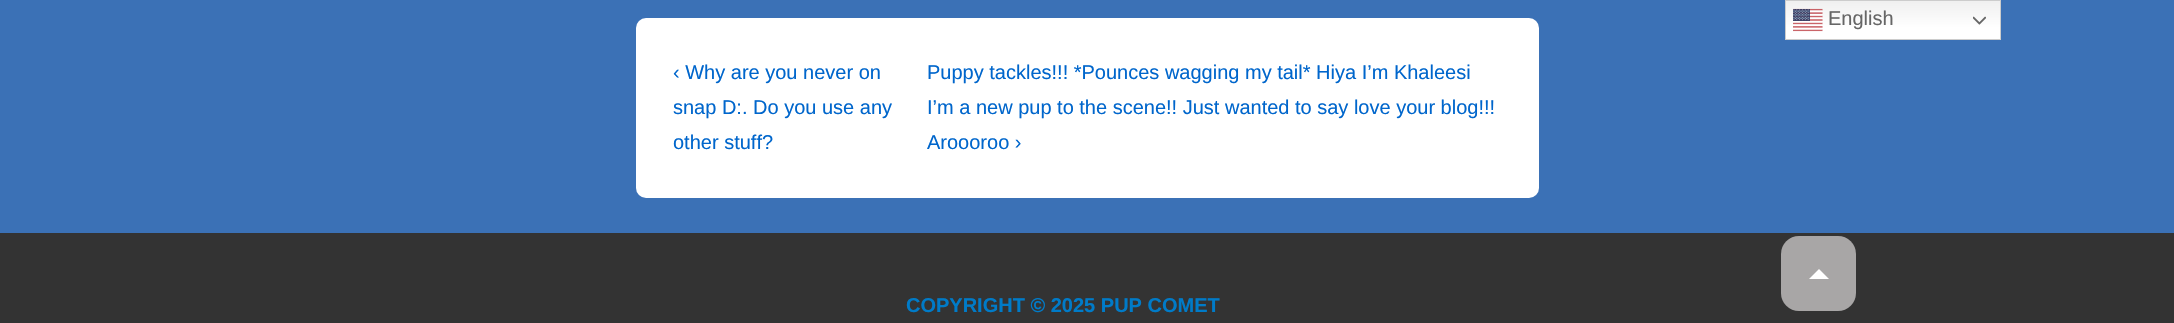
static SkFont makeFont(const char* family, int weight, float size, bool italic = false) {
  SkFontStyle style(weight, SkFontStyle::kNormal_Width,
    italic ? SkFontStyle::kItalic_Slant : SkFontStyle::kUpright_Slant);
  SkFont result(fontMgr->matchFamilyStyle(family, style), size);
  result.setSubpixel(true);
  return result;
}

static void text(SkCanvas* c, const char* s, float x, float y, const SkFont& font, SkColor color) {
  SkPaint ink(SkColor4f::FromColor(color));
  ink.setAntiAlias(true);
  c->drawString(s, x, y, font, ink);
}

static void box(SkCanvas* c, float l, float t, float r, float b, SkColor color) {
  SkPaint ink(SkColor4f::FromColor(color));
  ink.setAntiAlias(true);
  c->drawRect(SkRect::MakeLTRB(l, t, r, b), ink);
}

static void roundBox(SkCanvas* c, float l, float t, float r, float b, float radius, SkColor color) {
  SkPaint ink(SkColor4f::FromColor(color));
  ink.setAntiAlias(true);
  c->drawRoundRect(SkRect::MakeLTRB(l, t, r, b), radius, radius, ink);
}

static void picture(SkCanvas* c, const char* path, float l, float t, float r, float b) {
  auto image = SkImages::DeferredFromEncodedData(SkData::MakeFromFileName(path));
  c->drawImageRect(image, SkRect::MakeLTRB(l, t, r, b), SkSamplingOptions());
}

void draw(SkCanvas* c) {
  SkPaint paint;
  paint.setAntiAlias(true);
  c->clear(0xff3b71b6);
  {
    const SkColor colors[] = {0xffefefef, 0xffffffff};
    const float stops[] = {0, 0.7f};
    const SkPoint ends[] = {{1893, 0}, {1893, 40}};
    paint.setShader(SkGradientShader::MakeLinear(ends, colors, stops, 2, SkTileMode::kClamp));
    paint.setAlpha(255);
  }
  c->drawRect(SkRect::MakeLTRB(1786, 1, 2000, 39), paint);
  paint.setStyle(SkPaint::kStroke_Style);
  paint.setStrokeWidth(1);
  paint.setShader(nullptr);
  paint.setColor(0xffcccccc);
  c->drawRect(SkRect::MakeLTRB(1785.5f, 0.5f, 2000.5f, 39.5f), paint);
  picture(c, "img_01.png", 1793, 8, 1823, 32);
  SkFont face1 = makeFont("Liberation Sans", 400, 20);
  text(c, "English", 1828, 25, face1, 0xff666666);
  picture(c, "img_02.png", 1973, 16, 1986, 25);
  roundBox(c, 636, 18, 1539, 198, 10, 0xffffffff);
  text(c, "‹ Why are you never on", 673, 79, face1, 0xff0066cc);
  text(c, "snap D:. Do you use any", 673, 114, face1, 0xff0066cc);
  text(c, "other stuff?", 673, 149, face1, 0xff0066cc);
  text(c, "Puppy tackles!!! *Pounces wagging my tail* Hiya I’m Khaleesi", 927, 79, face1, 0xff0066cc);
  text(c, "I’m a new pup to the scene!! Just wanted to say love your blog!!!", 927, 114, face1, 0xff0066cc);
  text(c, "Aroooroo ›", 927, 149, face1, 0xff0066cc);
  box(c, 0, 233, 2174, 323, 0xff333333);
  SkFont face2 = makeFont("Liberation Sans", 700, 20);
  text(c, "COPYRIGHT © 2025 PUP COMET", 906, 312, face2, 0xff007bc8);
  roundBox(c, 1781, 236, 1856, 311, 18, 0xffa8a6a6);
  paint.setStyle(SkPaint::kFill_Style);
  paint.setColor(0xffffffff);
  c->drawPath(SkPathBuilder().moveTo(1829, 279).lineTo(1809, 279).lineTo(1819, 269).close().detach(), paint);
}
